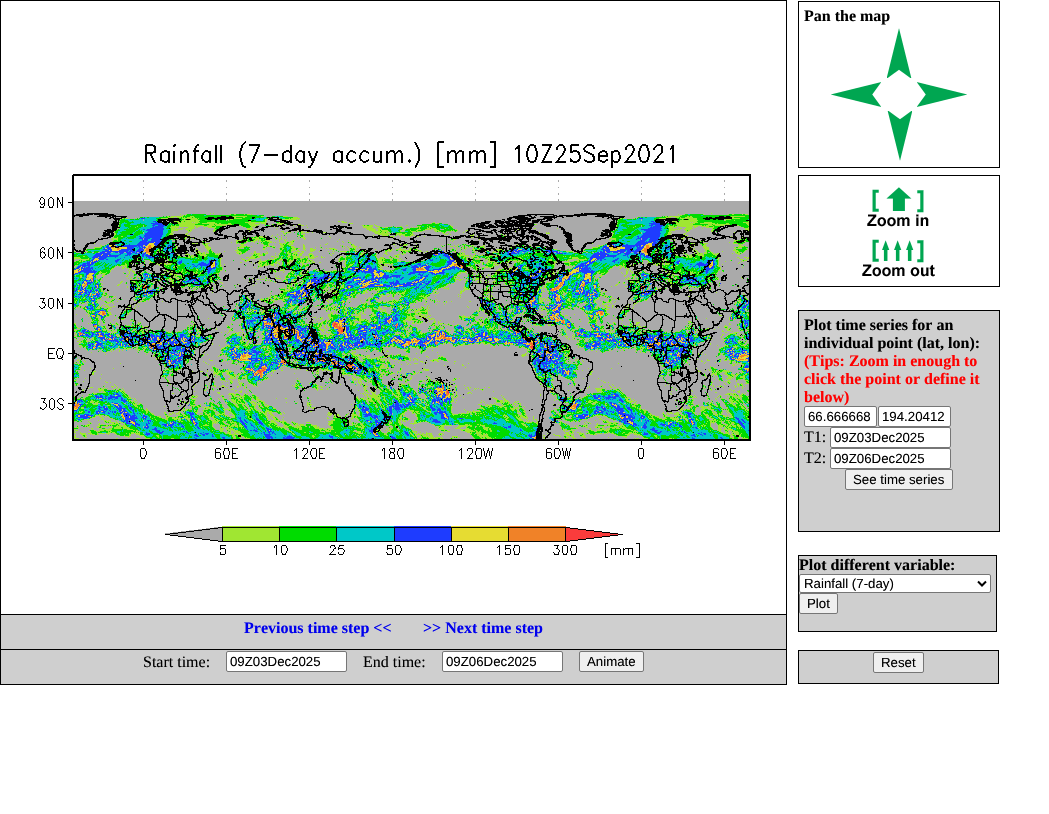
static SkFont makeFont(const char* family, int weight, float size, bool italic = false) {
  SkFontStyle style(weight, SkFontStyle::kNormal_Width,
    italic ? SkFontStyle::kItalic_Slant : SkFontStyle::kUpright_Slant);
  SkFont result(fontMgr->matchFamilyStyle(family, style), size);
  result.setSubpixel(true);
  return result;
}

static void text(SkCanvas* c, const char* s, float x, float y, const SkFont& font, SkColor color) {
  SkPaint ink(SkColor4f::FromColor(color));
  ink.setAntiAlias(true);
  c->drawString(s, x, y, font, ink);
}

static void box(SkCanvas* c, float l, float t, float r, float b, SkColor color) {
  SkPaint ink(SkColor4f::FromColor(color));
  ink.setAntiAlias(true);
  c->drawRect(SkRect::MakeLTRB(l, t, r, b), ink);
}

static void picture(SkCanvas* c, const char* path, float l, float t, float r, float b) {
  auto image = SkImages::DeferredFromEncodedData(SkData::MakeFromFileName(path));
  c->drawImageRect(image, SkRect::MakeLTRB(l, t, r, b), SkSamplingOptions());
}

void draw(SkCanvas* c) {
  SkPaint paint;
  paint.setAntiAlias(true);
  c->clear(0xffffffff);
  paint.setStyle(SkPaint::kStroke_Style);
  paint.setStrokeWidth(1);
  paint.setColor(0xff000000);
  c->drawRect(SkRect::MakeLTRB(0.5f, 0.5f, 786.5f, 684.5f), paint);
  picture(c, "img_01.png", 39, 141, 751, 558);
  c->drawRect(SkRect::MakeLTRB(798.5f, 1.5f, 999.5f, 167.5f), paint);
  SkFont face1 = makeFont("Liberation Serif", 700, 16);
  text(c, "Pan the map", 804, 21, face1, 0xff000000);
  picture(c, "img_02.png", 887, 28, 912, 78);
  picture(c, "img_03.png", 831, 82, 881, 107);
  picture(c, "img_04.png", 917, 82, 967, 107);
  picture(c, "img_05.png", 887, 111, 912, 161);
  c->drawRect(SkRect::MakeLTRB(798.5f, 175.5f, 999.5f, 286.5f), paint);
  picture(c, "img_06.png", 867, 187, 929, 227);
  picture(c, "img_07.png", 862, 239, 935, 277);
  paint.setStyle(SkPaint::kFill_Style);
  paint.setColor(0xffcfcfcf);
  c->drawRect(SkRect::MakeLTRB(798.5f, 310.5f, 999.5f, 531.5f), paint);
  paint.setStyle(SkPaint::kStroke_Style);
  paint.setColor(0xff000000);
  c->drawRect(SkRect::MakeLTRB(798.5f, 310.5f, 999.5f, 531.5f), paint);
  text(c, "Plot time series for an", 804, 330, face1, 0xff000000);
  text(c, "individual point (lat, lon):", 804, 348, face1, 0xff000000);
  text(c, "(Tips: Zoom in enough to", 804, 366, face1, 0xffff0000);
  text(c, "click the point or define it", 804, 384, face1, 0xffff0000);
  text(c, "below)", 804, 402, face1, 0xffff0000);
  paint.setStyle(SkPaint::kFill_Style);
  paint.setColor(0xffffffff);
  c->drawRoundRect(SkRect::MakeLTRB(804.5f, 406.5f, 876.5f, 426.5f), 1.5f, 1.5f, paint);
  paint.setStyle(SkPaint::kStroke_Style);
  paint.setColor(0xff767676);
  c->drawRoundRect(SkRect::MakeLTRB(804.5f, 406.5f, 876.5f, 426.5f), 1.5f, 1.5f, paint);
  SkFont face2 = makeFont("Liberation Sans", 400, 13.25f);
  text(c, "66.666668", 808, 421, face2, 0xff000000);
  paint.setStyle(SkPaint::kFill_Style);
  paint.setColor(0xffffffff);
  c->drawRoundRect(SkRect::MakeLTRB(878.5f, 406.5f, 950.5f, 426.5f), 1.5f, 1.5f, paint);
  paint.setStyle(SkPaint::kStroke_Style);
  paint.setColor(0xff767676);
  c->drawRoundRect(SkRect::MakeLTRB(878.5f, 406.5f, 950.5f, 426.5f), 1.5f, 1.5f, paint);
  text(c, "194.20412", 882, 421, face2, 0xff000000);
  SkFont face3 = makeFont("Liberation Serif", 400, 16);
  text(c, "T1:", 804, 442, face3, 0xff000000);
  paint.setStyle(SkPaint::kFill_Style);
  paint.setColor(0xffffffff);
  c->drawRoundRect(SkRect::MakeLTRB(830.5f, 427.5f, 950.5f, 447.5f), 1.5f, 1.5f, paint);
  paint.setStyle(SkPaint::kStroke_Style);
  paint.setColor(0xff767676);
  c->drawRoundRect(SkRect::MakeLTRB(830.5f, 427.5f, 950.5f, 447.5f), 1.5f, 1.5f, paint);
  text(c, "09Z03Dec2025", 834, 442, face2, 0xff000000);
  text(c, "T2:", 804, 463, face3, 0xff000000);
  paint.setStyle(SkPaint::kFill_Style);
  paint.setColor(0xffffffff);
  c->drawRoundRect(SkRect::MakeLTRB(830.5f, 448.5f, 950.5f, 468.5f), 1.5f, 1.5f, paint);
  paint.setStyle(SkPaint::kStroke_Style);
  paint.setColor(0xff767676);
  c->drawRoundRect(SkRect::MakeLTRB(830.5f, 448.5f, 950.5f, 468.5f), 1.5f, 1.5f, paint);
  text(c, "09Z06Dec2025", 834, 463, face2, 0xff000000);
  paint.setStyle(SkPaint::kFill_Style);
  paint.setColor(0xffefefef);
  c->drawRoundRect(SkRect::MakeLTRB(845.5f, 469.5f, 952.5f, 489.5f), 1.5f, 1.5f, paint);
  paint.setStyle(SkPaint::kStroke_Style);
  paint.setColor(0xff767676);
  c->drawRoundRect(SkRect::MakeLTRB(845.5f, 469.5f, 952.5f, 489.5f), 1.5f, 1.5f, paint);
  text(c, "See time series", 853, 484, face2, 0xff000000);
  paint.setStyle(SkPaint::kFill_Style);
  paint.setColor(0xffcfcfcf);
  c->drawRect(SkRect::MakeLTRB(798.5f, 555.5f, 996.5f, 631.5f), paint);
  paint.setStyle(SkPaint::kStroke_Style);
  paint.setColor(0xff000000);
  c->drawRect(SkRect::MakeLTRB(798.5f, 555.5f, 996.5f, 631.5f), paint);
  text(c, "Plot different variable:", 799, 570, face1, 0xff000000);
  paint.setStyle(SkPaint::kFill_Style);
  paint.setColor(0xffffffff);
  c->drawRoundRect(SkRect::MakeLTRB(799.5f, 574.5f, 990.5f, 592.5f), 1.5f, 1.5f, paint);
  paint.setStyle(SkPaint::kStroke_Style);
  paint.setColor(0xff767676);
  c->drawRoundRect(SkRect::MakeLTRB(799.5f, 574.5f, 990.5f, 592.5f), 1.5f, 1.5f, paint);
  paint.setStrokeWidth(2);
  paint.setColor(0xff000000);
  c->drawPath(SkPathBuilder().moveTo(978, 581.5f).lineTo(982, 585.5f).lineTo(986, 581.5f).detach(), paint);
  text(c, "Rainfall (7-day)", 804, 588, face2, 0xff000000);
  paint.setStyle(SkPaint::kFill_Style);
  paint.setColor(0xffefefef);
  c->drawRoundRect(SkRect::MakeLTRB(799.5f, 593.5f, 837.5f, 613.5f), 1.5f, 1.5f, paint);
  paint.setStyle(SkPaint::kStroke_Style);
  paint.setStrokeWidth(1);
  paint.setColor(0xff767676);
  c->drawRoundRect(SkRect::MakeLTRB(799.5f, 593.5f, 837.5f, 613.5f), 1.5f, 1.5f, paint);
  text(c, "Plot", 807, 608, face2, 0xff000000);
  paint.setStyle(SkPaint::kFill_Style);
  paint.setColor(0xffcfcfcf);
  c->drawRect(SkRect::MakeLTRB(0.5f, 614.5f, 786.5f, 649.5f), paint);
  paint.setStyle(SkPaint::kStroke_Style);
  paint.setColor(0xff000000);
  c->drawRect(SkRect::MakeLTRB(0.5f, 614.5f, 786.5f, 649.5f), paint);
  text(c, "Previous time step <<", 244, 633, face1, 0xff0000ee);
  text(c, ">> Next time step", 423, 633, face1, 0xff0000ee);
  box(c, 1, 650, 786, 684, 0xffcfcfcf);
  text(c, "Start time:", 143, 667, face3, 0xff000000);
  paint.setStyle(SkPaint::kFill_Style);
  paint.setColor(0xffffffff);
  c->drawRoundRect(SkRect::MakeLTRB(226.5f, 651.5f, 346.5f, 671.5f), 1.5f, 1.5f, paint);
  paint.setStyle(SkPaint::kStroke_Style);
  paint.setColor(0xff767676);
  c->drawRoundRect(SkRect::MakeLTRB(226.5f, 651.5f, 346.5f, 671.5f), 1.5f, 1.5f, paint);
  text(c, "09Z03Dec2025", 230, 666, face2, 0xff000000);
  text(c, "End time:", 363, 667, face3, 0xff000000);
  paint.setStyle(SkPaint::kFill_Style);
  paint.setColor(0xffffffff);
  c->drawRoundRect(SkRect::MakeLTRB(442.5f, 651.5f, 562.5f, 671.5f), 1.5f, 1.5f, paint);
  paint.setStyle(SkPaint::kStroke_Style);
  paint.setColor(0xff767676);
  c->drawRoundRect(SkRect::MakeLTRB(442.5f, 651.5f, 562.5f, 671.5f), 1.5f, 1.5f, paint);
  text(c, "09Z06Dec2025", 446, 666, face2, 0xff000000);
  paint.setStyle(SkPaint::kFill_Style);
  paint.setColor(0xffefefef);
  c->drawRoundRect(SkRect::MakeLTRB(579.5f, 651.5f, 643.5f, 671.5f), 1.5f, 1.5f, paint);
  paint.setStyle(SkPaint::kStroke_Style);
  paint.setColor(0xff767676);
  c->drawRoundRect(SkRect::MakeLTRB(579.5f, 651.5f, 643.5f, 671.5f), 1.5f, 1.5f, paint);
  text(c, "Animate", 587, 666, face2, 0xff000000);
  paint.setStyle(SkPaint::kFill_Style);
  paint.setColor(0xffcfcfcf);
  c->drawRect(SkRect::MakeLTRB(798.5f, 650.5f, 998.5f, 683.5f), paint);
  paint.setStyle(SkPaint::kStroke_Style);
  paint.setColor(0xff000000);
  c->drawRect(SkRect::MakeLTRB(798.5f, 650.5f, 998.5f, 683.5f), paint);
  paint.setStyle(SkPaint::kFill_Style);
  paint.setColor(0xffefefef);
  c->drawRoundRect(SkRect::MakeLTRB(873.5f, 652.5f, 923.5f, 672.5f), 1.5f, 1.5f, paint);
  paint.setStyle(SkPaint::kStroke_Style);
  paint.setColor(0xff767676);
  c->drawRoundRect(SkRect::MakeLTRB(873.5f, 652.5f, 923.5f, 672.5f), 1.5f, 1.5f, paint);
  text(c, "Reset", 881, 667, face2, 0xff000000);
}
